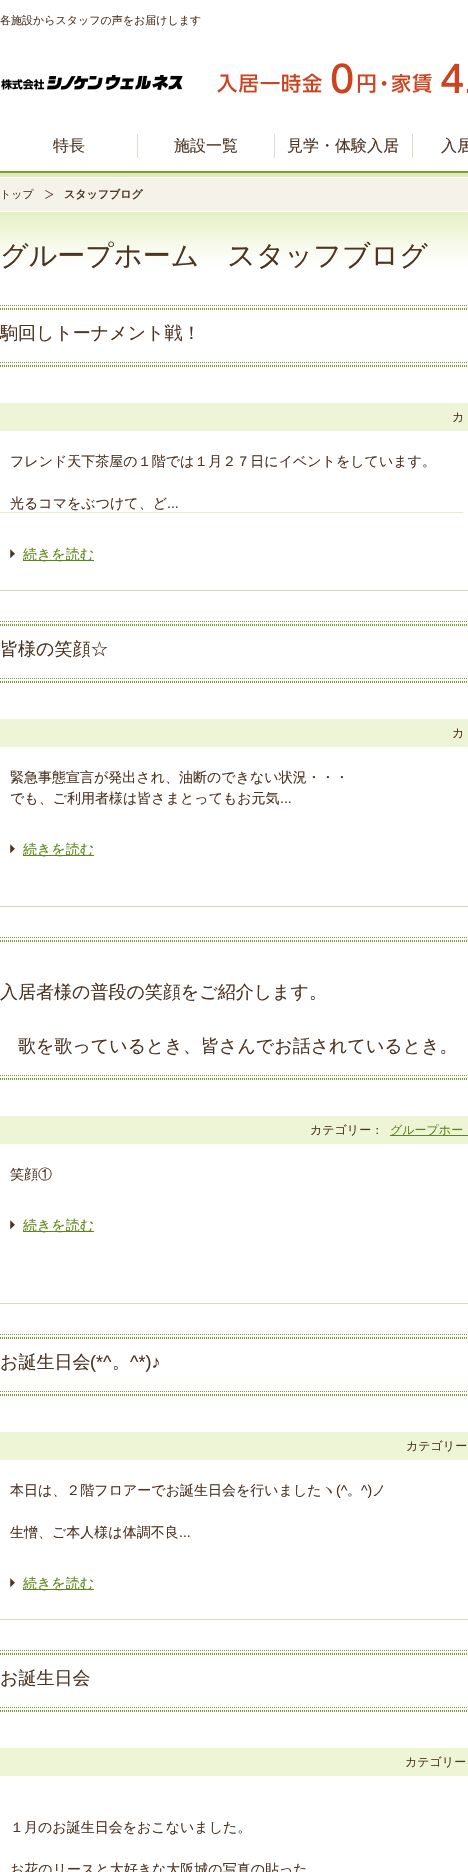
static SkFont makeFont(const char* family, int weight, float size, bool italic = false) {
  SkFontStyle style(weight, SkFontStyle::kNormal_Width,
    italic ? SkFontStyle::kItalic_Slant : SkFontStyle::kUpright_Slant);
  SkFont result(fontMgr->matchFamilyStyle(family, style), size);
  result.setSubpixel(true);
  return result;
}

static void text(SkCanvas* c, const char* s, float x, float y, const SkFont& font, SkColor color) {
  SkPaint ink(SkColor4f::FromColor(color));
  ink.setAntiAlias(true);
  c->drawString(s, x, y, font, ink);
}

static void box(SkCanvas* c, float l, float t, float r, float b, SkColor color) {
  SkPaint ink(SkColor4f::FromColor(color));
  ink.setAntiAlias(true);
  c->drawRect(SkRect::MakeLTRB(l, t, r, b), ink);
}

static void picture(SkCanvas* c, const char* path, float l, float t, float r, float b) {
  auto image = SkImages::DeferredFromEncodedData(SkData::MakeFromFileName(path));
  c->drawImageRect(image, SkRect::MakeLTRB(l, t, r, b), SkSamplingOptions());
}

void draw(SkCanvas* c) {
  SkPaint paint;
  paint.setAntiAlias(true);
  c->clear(0xffffffff);
  SkFont face1 = makeFont("WenQuanYi Zen Hei", 500, 11);
  text(c, "各施設からスタッフの声をお届けします", 0, 24, face1, 0xff4d3523);
  picture(c, "img_01.png", 1, 75, 183, 90);
  picture(c, "img_02.png", 217, 63, 468, 94);
  picture(c, "img_03.png", 0, 171, 468, 177);
  SkFont face2 = makeFont("WenQuanYi Zen Hei", 500, 16);
  text(c, "特長", 53, 151, face2, 0xff4d3523);
  box(c, 137, 134, 138, 158, 0xffdfdace);
  text(c, "施設一覧", 174, 151, face2, 0xff4d3523);
  box(c, 274, 134, 275, 158, 0xffdfdace);
  text(c, "見学・体験入居", 287, 151, face2, 0xff4d3523);
  box(c, 412, 134, 413, 158, 0xffdfdace);
  text(c, "入居", 441, 151, face2, 0xff4d3523);
  box(c, 0, 178, 468, 211, 0xfff5f2e9);
  text(c, "トップ", 0, 198, face1, 0xff4d3523);
  picture(c, "img_04.png", 45, 190, 54, 199);
  SkFont face3 = makeFont("WenQuanYi Zen Hei", 700, 11);
  text(c, "スタッフブログ", 64, 198, face3, 0xff4d3523);
  picture(c, "img_05.png", 0, 212, 468, 513);
  box(c, 463, 512, 468, 513, 0xffffffff);
  SkFont face4 = makeFont("WenQuanYi Zen Hei", 500, 28);
  text(c, "グループホーム　スタッフブログ", 0, 265, face4, 0xff4d3523);
  picture(c, "img_06.png", 0, 305, 467, 310);
  box(c, 0, 590, 468, 591, 0xffdcd6c6);
  SkFont face5 = makeFont("WenQuanYi Zen Hei", 500, 18);
  text(c, "駒回しトーナメント戦！", 0, 339, face5, 0xff4d3523);
  picture(c, "img_06.png", 0, 362, 467, 367);
  box(c, 0, 403, 468, 431, 0xffeef5d7);
  SkFont face6 = makeFont("WenQuanYi Zen Hei", 500, 12);
  text(c, "カ", 452, 421, face6, 0xff4d3523);
  SkFont face7 = makeFont("WenQuanYi Zen Hei", 500, 14);
  text(c, "フレンド天下茶屋の１階では１月２７日にイベントをしています。", 10, 466, face7, 0xff4d3523);
  text(c, "光るコマをぶつけて、ど", 10, 508, face7, 0xff4d3523);
  SkFont face8 = makeFont("Liberation Sans", 400, 14);
  text(c, "...", 167, 508, face8, 0xff4d3523);
  picture(c, "img_07.png", 10, 549, 15, 559);
  box(c, 23, 560, 94, 561, 0xff5d8617);
  text(c, "続きを読む", 23, 559, face7, 0xff5d8617);
  picture(c, "img_06.png", 0, 621, 467, 626);
  box(c, 0, 906, 468, 907, 0xffdcd6c6);
  text(c, "皆様の笑顔☆", 0, 655, face5, 0xff4d3523);
  picture(c, "img_06.png", 0, 678, 467, 683);
  box(c, 0, 719, 468, 747, 0xffeef5d7);
  text(c, "カ", 452, 737, face6, 0xff4d3523);
  text(c, "緊急事態宣言が発出され、油断のできない状況・・・", 10, 782, face7, 0xff4d3523);
  text(c, "でも、ご利用者様は皆さまとってもお元気", 10, 803, face7, 0xff4d3523);
  text(c, "...", 280, 803, face8, 0xff4d3523);
  picture(c, "img_07.png", 10, 844, 15, 854);
  box(c, 23, 855, 94, 856, 0xff5d8617);
  text(c, "続きを読む", 23, 854, face7, 0xff5d8617);
  picture(c, "img_06.png", 0, 937, 467, 942);
  box(c, 0, 1303, 468, 1304, 0xffdcd6c6);
  text(c, "入居者様の普段の笑顔をご紹介します。", 0, 998, face5, 0xff4d3523);
  text(c, "歌を歌っているとき、皆さんでお話されているとき。", 18, 1052, face5, 0xff4d3523);
  picture(c, "img_06.png", 0, 1075, 467, 1080);
  box(c, 0, 1116, 468, 1144, 0xffeef5d7);
  text(c, "カテゴリー：", 310, 1134, face6, 0xff4d3523);
  box(c, 390, 1135, 468, 1136, 0xff5d8617);
  text(c, "グループホー", 390, 1134, face6, 0xff5d8617);
  text(c, "笑顔①", 10, 1179, face7, 0xff4d3523);
  picture(c, "img_07.png", 10, 1220, 15, 1230);
  box(c, 23, 1231, 94, 1232, 0xff5d8617);
  text(c, "続きを読む", 23, 1230, face7, 0xff5d8617);
  picture(c, "img_06.png", 0, 1334, 467, 1339);
  box(c, 0, 1619, 468, 1620, 0xffdcd6c6);
  text(c, "お誕生日会", 0, 1368, face5, 0xff4d3523);
  SkFont face9 = makeFont("Liberation Sans", 400, 18);
  text(c, "(*^", 90, 1368, face9, 0xff4d3523);
  text(c, "。", 112, 1368, face5, 0xff4d3523);
  text(c, "^*)♪", 130, 1368, face9, 0xff4d3523);
  picture(c, "img_06.png", 0, 1391, 467, 1396);
  box(c, 0, 1432, 468, 1460, 0xffeef5d7);
  text(c, "カテゴリー", 406, 1450, face6, 0xff4d3523);
  text(c, "本日は、２階フロアーでお誕生日会を行いましたヽ", 10, 1495, face7, 0xff4d3523);
  text(c, "(^", 336, 1495, face8, 0xff4d3523);
  text(c, "。", 347, 1495, face7, 0xff4d3523);
  text(c, "^)", 361, 1495, face8, 0xff4d3523);
  text(c, "ノ", 372, 1495, face7, 0xff4d3523);
  text(c, "生憎、ご本人様は体調不良", 10, 1537, face7, 0xff4d3523);
  text(c, "...", 179, 1537, face8, 0xff4d3523);
  picture(c, "img_07.png", 10, 1578, 15, 1588);
  box(c, 23, 1589, 94, 1590, 0xff5d8617);
  text(c, "続きを読む", 23, 1588, face7, 0xff5d8617);
  picture(c, "img_06.png", 0, 1650, 467, 1655);
  text(c, "お誕生日会", 0, 1684, face5, 0xff4d3523);
  picture(c, "img_06.png", 0, 1707, 467, 1712);
  box(c, 0, 1748, 468, 1776, 0xffeef5d7);
  text(c, "カテゴリー", 405, 1766, face6, 0xff4d3523);
  text(c, "１月のお誕生日会をおこないました。", 10, 1832, face7, 0xff4d3523);
  text(c, "お花のリースと大好きな大阪城の写真の貼った", 10, 1874, face7, 0xff4d3523);
}
